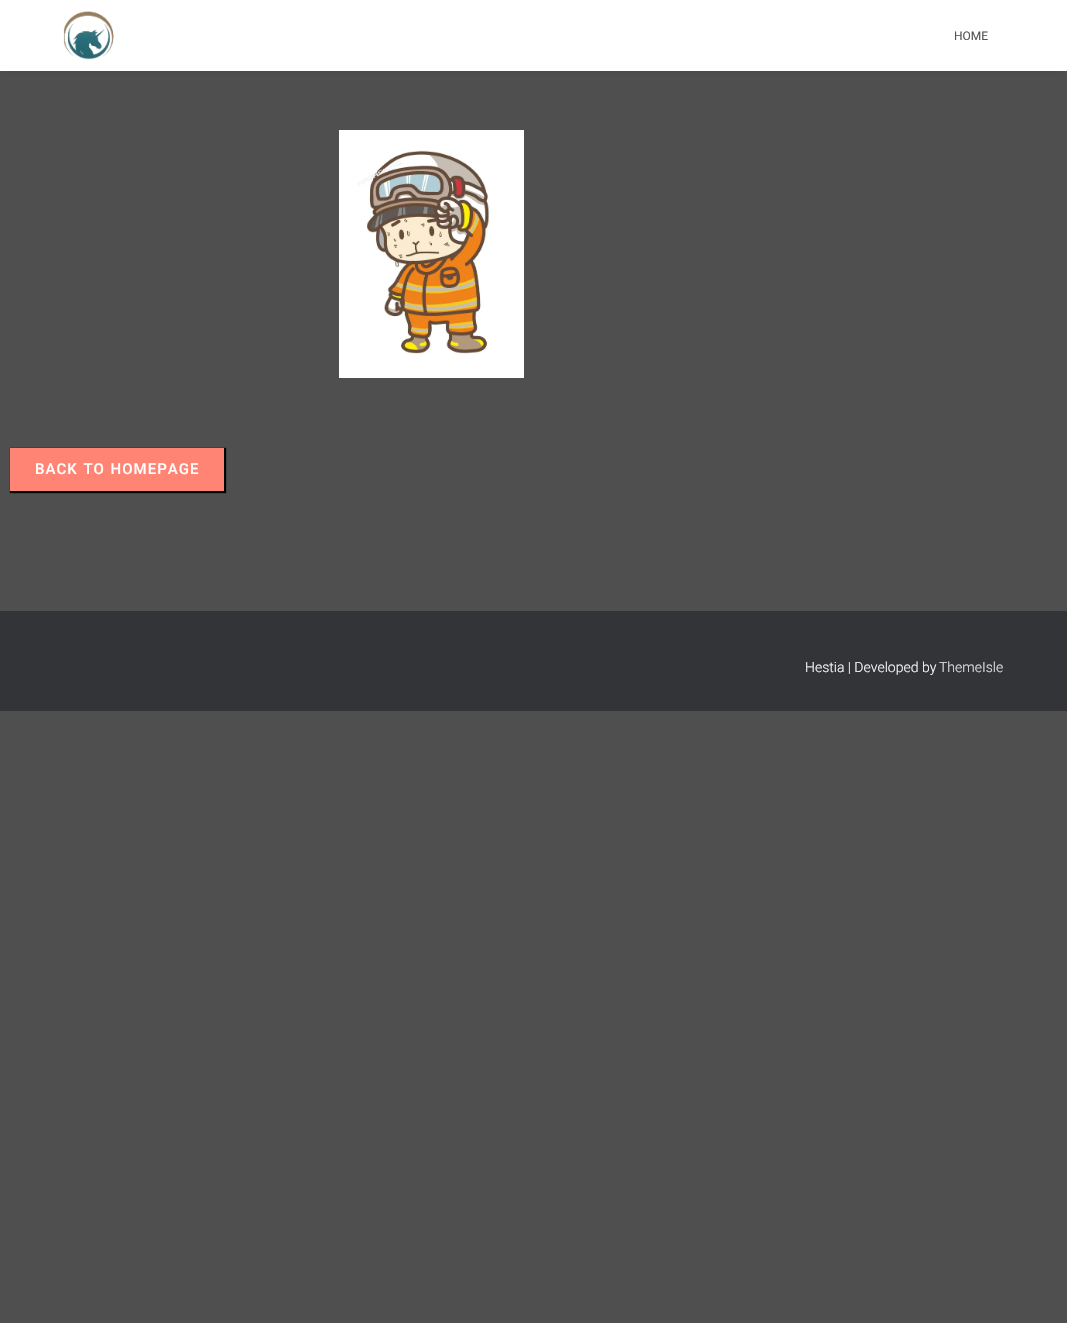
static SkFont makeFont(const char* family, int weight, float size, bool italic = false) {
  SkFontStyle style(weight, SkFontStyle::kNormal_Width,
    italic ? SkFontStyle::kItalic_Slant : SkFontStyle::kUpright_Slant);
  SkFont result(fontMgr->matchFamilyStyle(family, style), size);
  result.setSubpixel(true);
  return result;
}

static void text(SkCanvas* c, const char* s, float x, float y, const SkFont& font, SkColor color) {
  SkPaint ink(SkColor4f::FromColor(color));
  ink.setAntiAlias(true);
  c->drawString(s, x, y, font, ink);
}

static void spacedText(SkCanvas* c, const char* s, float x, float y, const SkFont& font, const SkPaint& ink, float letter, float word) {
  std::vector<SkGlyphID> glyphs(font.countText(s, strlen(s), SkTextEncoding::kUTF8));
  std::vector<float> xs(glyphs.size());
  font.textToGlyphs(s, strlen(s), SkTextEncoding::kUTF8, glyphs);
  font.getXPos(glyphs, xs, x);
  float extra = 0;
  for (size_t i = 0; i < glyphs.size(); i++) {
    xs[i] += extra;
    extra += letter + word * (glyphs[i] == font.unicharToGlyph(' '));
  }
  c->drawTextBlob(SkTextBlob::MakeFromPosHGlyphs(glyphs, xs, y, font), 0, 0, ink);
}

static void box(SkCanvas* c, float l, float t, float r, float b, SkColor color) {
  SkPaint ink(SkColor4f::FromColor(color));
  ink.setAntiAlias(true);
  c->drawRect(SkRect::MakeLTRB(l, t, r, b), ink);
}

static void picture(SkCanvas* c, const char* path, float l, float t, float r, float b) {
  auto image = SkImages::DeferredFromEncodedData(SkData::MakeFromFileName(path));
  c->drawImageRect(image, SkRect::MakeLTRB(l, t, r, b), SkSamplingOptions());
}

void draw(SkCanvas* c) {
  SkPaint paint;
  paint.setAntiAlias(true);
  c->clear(0xff4f4f4f);
  paint.setColor(0x6b000000);
  paint.setMaskFilter(SkMaskFilter::MakeBlur(kNormal_SkBlurStyle, 5));
  c->drawRect(SkRect::MakeLTRB(6, 7, 1061, 66), paint);
  paint.setMaskFilter(nullptr);
  box(c, 0, 0, 1067, 71, 0xffffffff);
  picture(c, "img_01.png", 63, 11, 114, 60);
  SkFont face1 = makeFont("Roboto", 400, 12);
  text(c, "HOME", 954, 40, face1, 0xff555555);
  picture(c, "img_02.png", 339, 130, 524, 378);
  paint.setColor(0xff000000);
  paint.setMaskFilter(SkMaskFilter::MakeBlur(kNormal_SkBlurStyle, 0.5f));
  c->drawRect(SkRect::MakeLTRB(10, 448, 226, 493), paint);
  paint.setMaskFilter(nullptr);
  box(c, 10, 448, 224, 491, 0xffff8474);
  SkFont face2 = makeFont("Roboto", 500, 15);
  paint.setColor(0xffffffff);
  spacedText(c, "BACK TO HOMEPAGE", 35, 474, face2, paint, 1, 1);
  box(c, 0, 611, 1067, 711, 0xff323437);
  SkFont face3 = makeFont("Roboto", 300, 14);
  text(c, "Hestia | Developed by", 805, 672, face3, 0xffffffff);
  text(c, "ThemeIsle", 939, 672, face3, 0xffe2e3e3);
}
